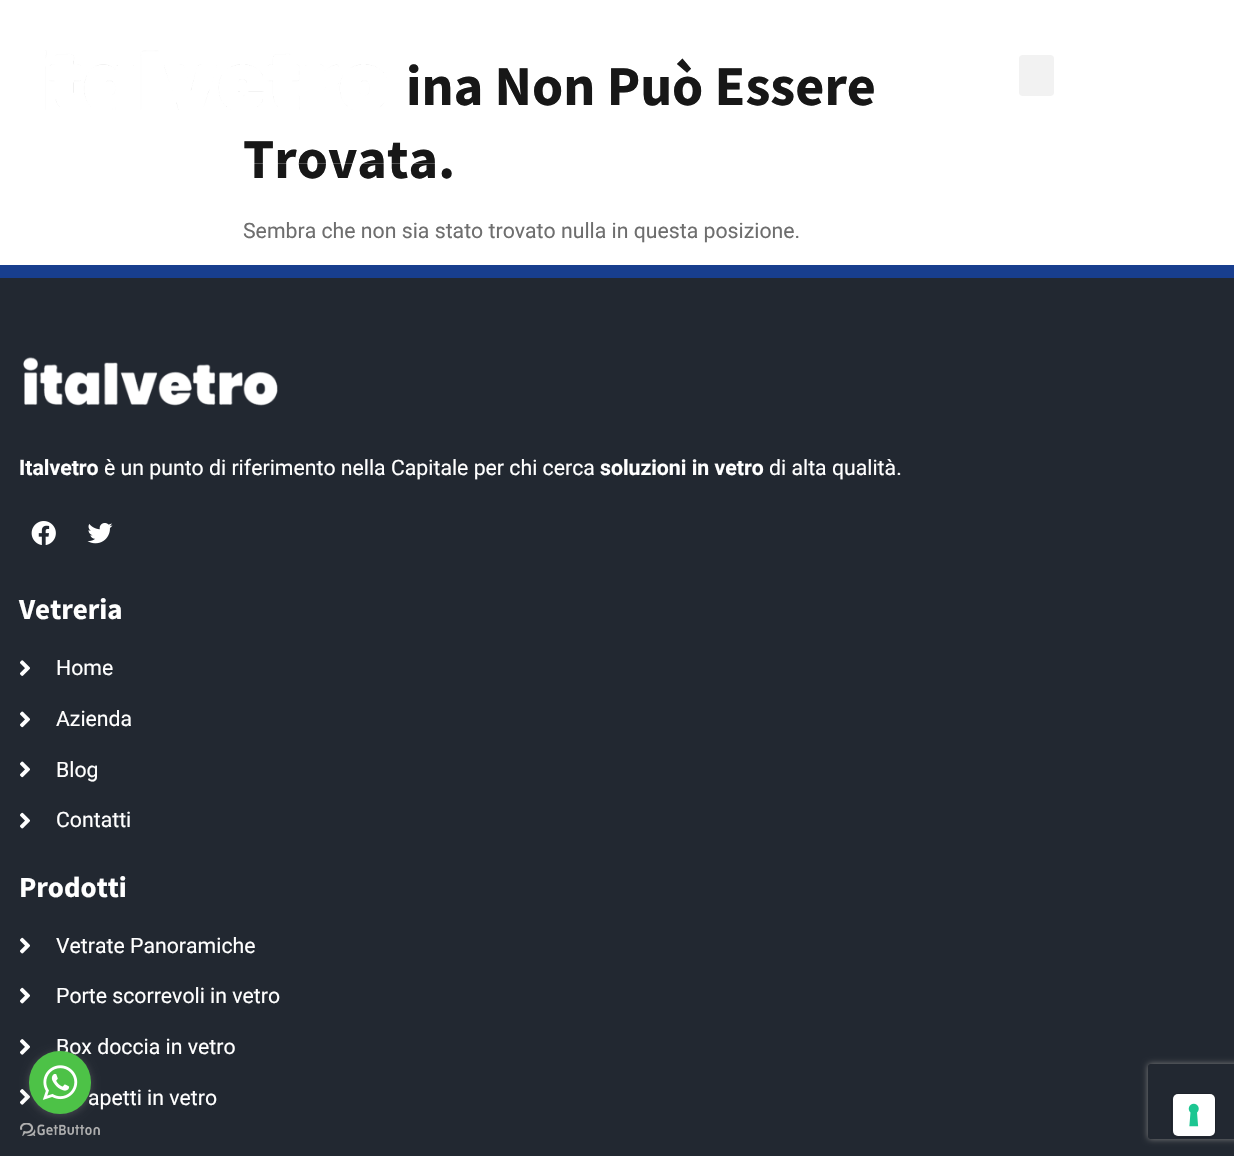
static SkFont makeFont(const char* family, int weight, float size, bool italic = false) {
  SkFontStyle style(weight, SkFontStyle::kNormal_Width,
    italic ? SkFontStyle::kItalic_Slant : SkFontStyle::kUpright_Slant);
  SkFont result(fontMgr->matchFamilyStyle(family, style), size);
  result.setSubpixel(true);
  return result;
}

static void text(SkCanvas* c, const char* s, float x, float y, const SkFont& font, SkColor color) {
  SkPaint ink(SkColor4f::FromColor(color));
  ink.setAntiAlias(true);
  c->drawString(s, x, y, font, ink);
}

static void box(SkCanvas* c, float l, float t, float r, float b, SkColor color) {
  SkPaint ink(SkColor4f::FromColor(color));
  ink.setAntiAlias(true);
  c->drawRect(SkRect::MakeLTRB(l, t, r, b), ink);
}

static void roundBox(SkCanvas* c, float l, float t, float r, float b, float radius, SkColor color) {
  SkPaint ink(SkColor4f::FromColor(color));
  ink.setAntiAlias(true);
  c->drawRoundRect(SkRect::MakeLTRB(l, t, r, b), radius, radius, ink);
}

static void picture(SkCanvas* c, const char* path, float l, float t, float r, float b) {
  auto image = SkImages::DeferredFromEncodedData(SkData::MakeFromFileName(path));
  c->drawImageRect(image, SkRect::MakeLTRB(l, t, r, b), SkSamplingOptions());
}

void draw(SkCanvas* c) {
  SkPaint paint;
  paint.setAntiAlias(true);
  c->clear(0xffffffff);
  SkFont face1 = makeFont("Source Sans Pro", 700, 56.25f);
  text(c, "Trovata.", 243, 178, face1, 0xff171717);
  box(c, 254, 163, 435, 164, 0x42ffffff);
  picture(c, "img_01.png", 45, 50, 389, 110);
  roundBox(c, 1019, 55, 1054, 96, 4, 0xfff2f2f2);
  text(c, "ina Non Può Essere", 406, 105, face1, 0xff171717);
  SkFont face2 = makeFont("Roboto", 400, 21.25f);
  text(c, "Sembra che non sia stato trovato nulla in questa posizione.", 243, 238, face2, 0xff6e6e6e);
  box(c, 0, 278, 1234, 1156, 0xff222831);
  box(c, 0, 265, 1234, 278, 0xff183e8e);
  picture(c, "img_02.png", 23, 357, 278, 406);
  SkFont face3 = makeFont("Roboto", 700, 21.25f);
  text(c, "Italvetro", 19, 475, face3, 0xffffffff);
  text(c, "è un punto di riferimento nella Capitale per chi cerca", 104, 475, face2, 0xffffffff);
  text(c, "soluzioni in vetro", 600, 475, face3, 0xffffffff);
  text(c, "di alta qualità.", 769, 475, face2, 0xffffffff);
  picture(c, "img_03.png", 31, 521, 56, 545);
  picture(c, "img_04.png", 87, 523, 113, 544);
  SkFont face4 = makeFont("Source Sans Pro", 700, 29);
  text(c, "Vetreria", 19, 619, face4, 0xffffffff);
  picture(c, "img_05.png", 20, 660, 30, 676);
  text(c, "Home", 56, 675, face2, 0xffffffff);
  picture(c, "img_06.png", 20, 711, 30, 728);
  text(c, "Azienda", 56, 726, face2, 0xffffffff);
  picture(c, "img_06.png", 20, 761, 30, 778);
  text(c, "Blog", 56, 777, face2, 0xffffffff);
  picture(c, "img_07.png", 20, 812, 30, 829);
  text(c, "Contatti", 56, 827, face2, 0xffffffff);
  text(c, "Prodotti", 19, 897, face4, 0xffffffff);
  picture(c, "img_07.png", 20, 937, 30, 954);
  text(c, "Vetrate Panoramiche", 56, 953, face2, 0xffffffff);
  picture(c, "img_07.png", 20, 987, 30, 1004);
  text(c, "Porte scorrevoli in vetro", 56, 1003, face2, 0xffffffff);
  picture(c, "img_08.png", 20, 1039, 30, 1055);
  text(c, "Box doccia in vetro", 56, 1054, face2, 0xffffffff);
  picture(c, "img_08.png", 20, 1089, 30, 1105);
  text(c, "apetti in vetro", 88, 1105, face2, 0xffffffff);
  picture(c, "img_10.png", 20, 1123, 100, 1136);
  paint.setColor(0x66888888);
  paint.setMaskFilter(SkMaskFilter::MakeBlur(kNormal_SkBlurStyle, 4.5f));
  c->drawRoundRect(SkRect::MakeLTRB(29, 1053, 91, 1115), 31, 31, paint);
  paint.setMaskFilter(nullptr);
  roundBox(c, 29, 1051, 91, 1114, 31, 0xff4dc247);
  picture(c, "img_09.png", 42, 1065, 78, 1100);
  c->save();
  c->clipPath(SkPathBuilder(SkPathFillType::kEvenOdd).moveTo(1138, 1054).lineTo(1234, 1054).lineTo(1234, 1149).lineTo(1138, 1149).close().moveTo(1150.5f, 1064).lineTo(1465.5f, 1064).cubicTo(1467, 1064, 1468, 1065, 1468, 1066.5f).lineTo(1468, 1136.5f).cubicTo(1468, 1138, 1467, 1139, 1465.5f, 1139).lineTo(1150.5f, 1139).cubicTo(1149, 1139, 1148, 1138, 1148, 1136.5f).lineTo(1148, 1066.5f).cubicTo(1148, 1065, 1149, 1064, 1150.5f, 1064).close().detach(), true);
  paint.setColor(0xff808080);
  paint.setMaskFilter(SkMaskFilter::MakeBlur(kNormal_SkBlurStyle, 3));
  c->drawRoundRect(SkRect::MakeLTRB(1148, 1064, 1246, 1139), 2.5f, 2.5f, paint);
  paint.setMaskFilter(nullptr);
  c->restore();
  paint.setStyle(SkPaint::kStroke_Style);
  paint.setStrokeWidth(1);
  paint.setColor(0xff1d222a);
  c->drawRoundRect(SkRect::MakeLTRB(1171.5f, 1093.5f, 1215.5f, 1137.5f), 5.5f, 5.5f, paint);
  roundBox(c, 1173, 1094, 1215, 1136, 5, 0xffffffff);
  picture(c, "img_11.png", 1188, 1103, 1199, 1127);
}
